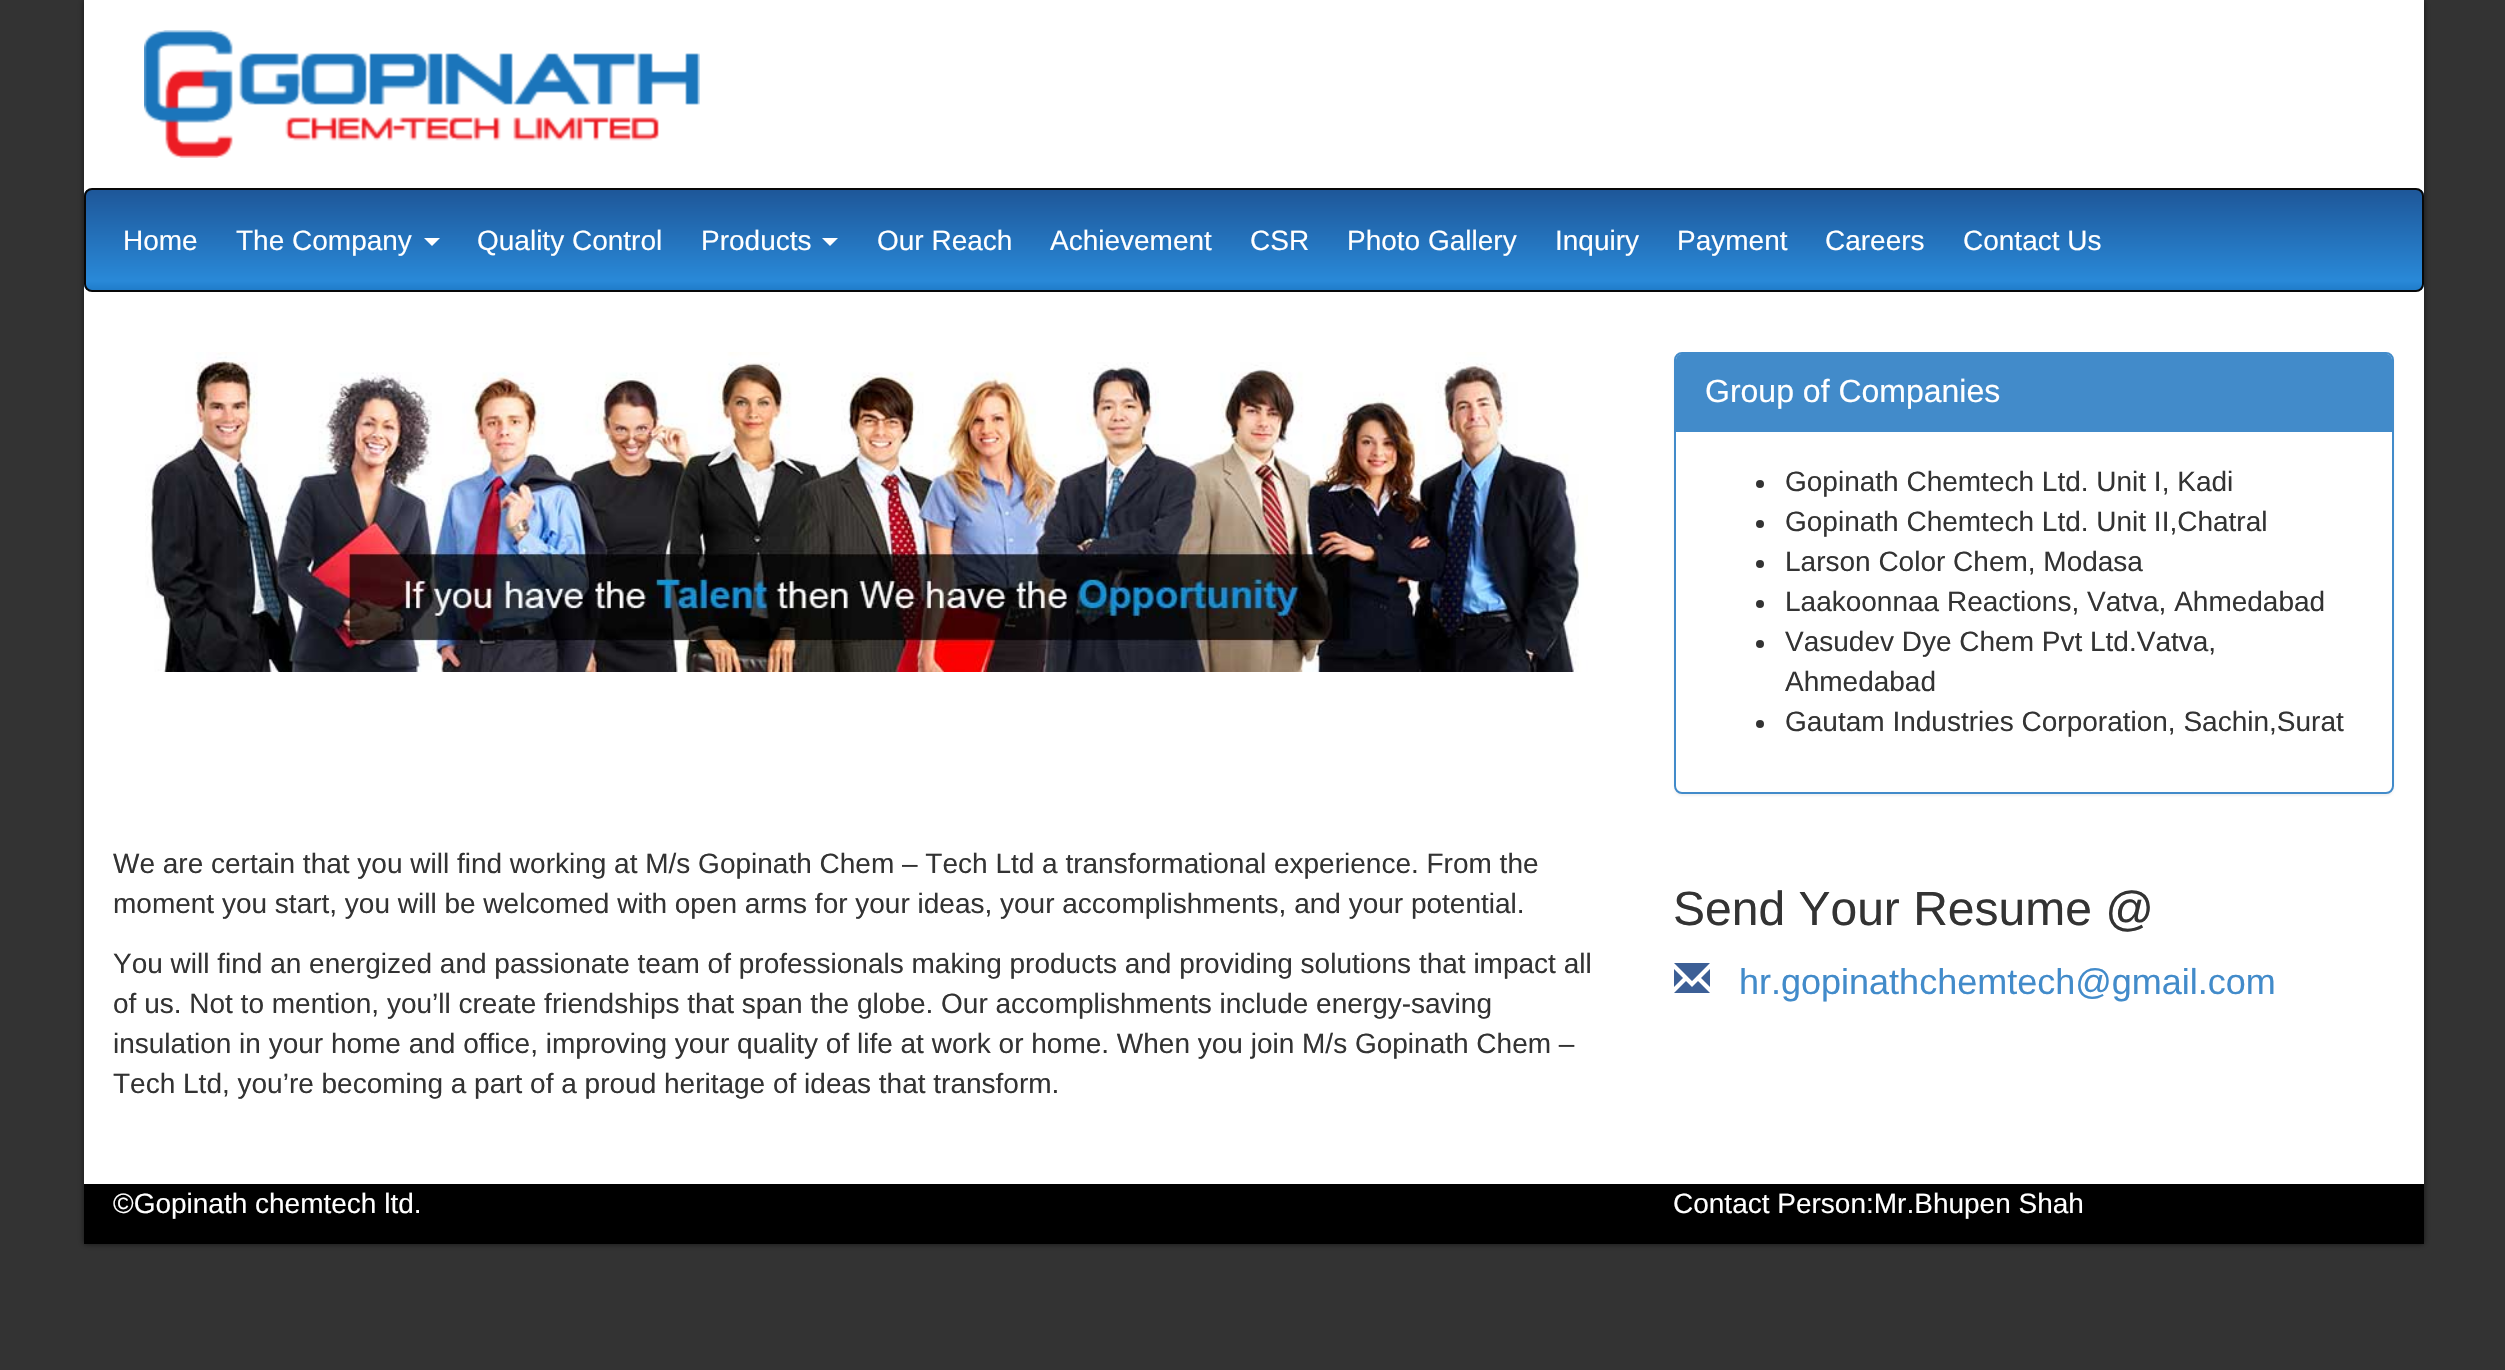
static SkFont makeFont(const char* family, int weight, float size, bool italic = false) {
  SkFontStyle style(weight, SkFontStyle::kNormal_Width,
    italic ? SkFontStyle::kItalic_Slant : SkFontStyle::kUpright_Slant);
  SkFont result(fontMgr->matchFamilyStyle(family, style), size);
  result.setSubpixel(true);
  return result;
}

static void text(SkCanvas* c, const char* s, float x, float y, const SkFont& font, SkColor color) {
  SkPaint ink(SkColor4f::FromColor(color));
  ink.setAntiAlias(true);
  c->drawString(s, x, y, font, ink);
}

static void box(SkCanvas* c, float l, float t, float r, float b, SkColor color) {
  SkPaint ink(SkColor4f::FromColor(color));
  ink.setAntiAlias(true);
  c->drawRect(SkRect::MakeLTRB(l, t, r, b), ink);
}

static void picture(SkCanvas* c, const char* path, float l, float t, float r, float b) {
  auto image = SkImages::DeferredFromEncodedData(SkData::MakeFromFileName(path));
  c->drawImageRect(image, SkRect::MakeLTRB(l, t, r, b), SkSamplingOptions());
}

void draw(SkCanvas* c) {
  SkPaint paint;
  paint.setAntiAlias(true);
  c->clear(0xff333333);
  paint.setColor(0x99000000);
  paint.setMaskFilter(SkMaskFilter::MakeBlur(kNormal_SkBlurStyle, 3));
  c->drawRect(SkRect::MakeLTRB(84, 0, 2424, 1244), paint);
  paint.setMaskFilter(nullptr);
  box(c, 84, 0, 2424, 1184, 0xffffffff);
  picture(c, "img_01.png", 144, 30, 700, 158);
  c->save();
  c->clipPath(SkPathBuilder().moveTo(92, 188).lineTo(2416, 188).cubicTo(2420.5f, 188, 2424, 191.5f, 2424, 196).lineTo(2424, 284).cubicTo(2424, 288.5f, 2420.5f, 292, 2416, 292).lineTo(92, 292).cubicTo(87.5f, 292, 84, 288.5f, 84, 284).lineTo(84, 196).cubicTo(84, 191.5f, 87.5f, 188, 92, 188).close().detach(), true);
  {
    const SkColor colors[] = {0xff1e5799, 0xff2989d8, 0xff207cca, 0xff7db9e8};
    const float stops[] = {0, 0.91f, 1, 1};
    const SkPoint ends[] = {{1254, 190}, {1254, 290}};
    paint.setShader(SkGradientShader::MakeLinear(ends, colors, stops, 4, SkTileMode::kClamp));
    paint.setAlpha(255);
  }
  c->drawRect(SkRect::MakeLTRB(84, 190, 2424, 290), paint);
  c->restore();
  paint.setStyle(SkPaint::kStroke_Style);
  paint.setStrokeWidth(2);
  paint.setShader(nullptr);
  paint.setColor(0xff080808);
  c->drawRoundRect(SkRect::MakeLTRB(85, 189, 2423, 291), 7, 7, paint);
  SkFont face1 = makeFont("Liberation Sans", 400, 28);
  text(c, "Home", 123, 250, face1, 0xffffffff);
  text(c, "The Company", 236, 250, face1, 0xffffffff);
  paint.setStyle(SkPaint::kFill_Style);
  paint.setColor(0xffffffff);
  c->drawPath(SkPathBuilder().moveTo(424, 238).lineTo(440, 238).lineTo(432, 246).close().detach(), paint);
  text(c, "Quality Control", 477, 250, face1, 0xffffffff);
  text(c, "Products", 701, 250, face1, 0xffffffff);
  c->drawPath(SkPathBuilder().moveTo(822, 238).lineTo(838, 238).lineTo(830, 246).close().detach(), paint);
  text(c, "Our Reach", 877, 250, face1, 0xffffffff);
  text(c, "Achievement", 1050, 250, face1, 0xffffffff);
  text(c, "CSR", 1250, 250, face1, 0xffffffff);
  text(c, "Photo Gallery", 1347, 250, face1, 0xffffffff);
  text(c, "Inquiry", 1555, 250, face1, 0xffffffff);
  text(c, "Payment", 1677, 250, face1, 0xffffffff);
  text(c, "Careers", 1825, 250, face1, 0xffffffff);
  text(c, "Contact Us", 1963, 250, face1, 0xffffffff);
  picture(c, "img_02.png", 145, 352, 1588, 672);
  paint.setColor(0x0d000000);
  paint.setMaskFilter(SkMaskFilter::MakeBlur(kNormal_SkBlurStyle, 1));
  c->drawRoundRect(SkRect::MakeLTRB(1674, 354, 2394, 796), 8, 8, paint);
  paint.setMaskFilter(nullptr);
  paint.setColor(0xffffffff);
  c->drawRoundRect(SkRect::MakeLTRB(1675, 353, 2393, 793), 7, 7, paint);
  paint.setStyle(SkPaint::kStroke_Style);
  paint.setColor(0xff428bca);
  c->drawRoundRect(SkRect::MakeLTRB(1675, 353, 2393, 793), 7, 7, paint);
  paint.setStyle(SkPaint::kFill_Style);
  c->drawPath(SkPathBuilder().moveTo(1682, 354).lineTo(2386, 354).cubicTo(2389.5f, 354, 2392, 356.5f, 2392, 360).lineTo(2392, 432).lineTo(1676, 432).lineTo(1676, 360).cubicTo(1676, 356.5f, 1678.5f, 354, 1682, 354).close().detach(), paint);
  SkFont face2 = makeFont("Liberation Sans", 400, 32);
  text(c, "Group of Companies", 1705, 402, face2, 0xffffffff);
  paint.setColor(0xff333333);
  c->drawCircle(1760, 484, 4, paint);
  text(c, "Gopinath Chemtech Ltd. Unit I, Kadi", 1785, 491, face1, 0xff333333);
  c->drawCircle(1760, 524, 4, paint);
  text(c, "Gopinath Chemtech Ltd. Unit II,Chatral", 1785, 531, face1, 0xff333333);
  c->drawCircle(1760, 564, 4, paint);
  text(c, "Larson Color Chem, Modasa", 1785, 571, face1, 0xff333333);
  c->drawCircle(1760, 604, 4, paint);
  text(c, "Laakoonnaa Reactions, Vatva, Ahmedabad", 1785, 611, face1, 0xff333333);
  c->drawCircle(1760, 644, 4, paint);
  text(c, "Vasudev Dye Chem Pvt Ltd.Vatva,", 1785, 651, face1, 0xff333333);
  text(c, "Ahmedabad", 1785, 691, face1, 0xff333333);
  c->drawCircle(1760, 724, 4, paint);
  text(c, "Gautam Industries Corporation, Sachin,Surat", 1785, 731, face1, 0xff333333);
  text(c, "We are certain that you will find working at M/s Gopinath Chem – Tech Ltd a transformational experience. From the", 113, 873, face1, 0xff333333);
  text(c, "moment you start, you will be welcomed with open arms for your ideas, your accomplishments, and your potential.", 113, 913, face1, 0xff333333);
  text(c, "You will find an energized and passionate team of professionals making products and providing solutions that impact all", 113, 973, face1, 0xff333333);
  text(c, "of us. Not to mention, you’ll create friendships that span the globe. Our accomplishments include energy-saving", 113, 1013, face1, 0xff333333);
  text(c, "insulation in your home and office, improving your quality of life at work or home. When you join M/s Gopinath Chem –", 113, 1053, face1, 0xff333333);
  text(c, "Tech Ltd, you’re becoming a part of a proud heritage of ideas that transform.", 113, 1093, face1, 0xff333333);
  SkFont face3 = makeFont("Liberation Sans", 400, 48);
  text(c, "Send Your Resume @", 1673, 925, face3, 0xff333333);
  picture(c, "img_03.png", 1674, 963, 1710, 993);
  SkFont face4 = makeFont("Liberation Sans", 400, 36);
  text(c, "hr.gopinathchemtech@gmail.com", 1739, 994, face4, 0xff428bca);
  box(c, 84, 1184, 2424, 1244, 0xff000000);
  text(c, "©Gopinath chemtech ltd.", 113, 1213, face1, 0xffffffff);
  text(c, "Contact Person:Mr.Bhupen Shah", 1673, 1213, face1, 0xffffffff);
}
